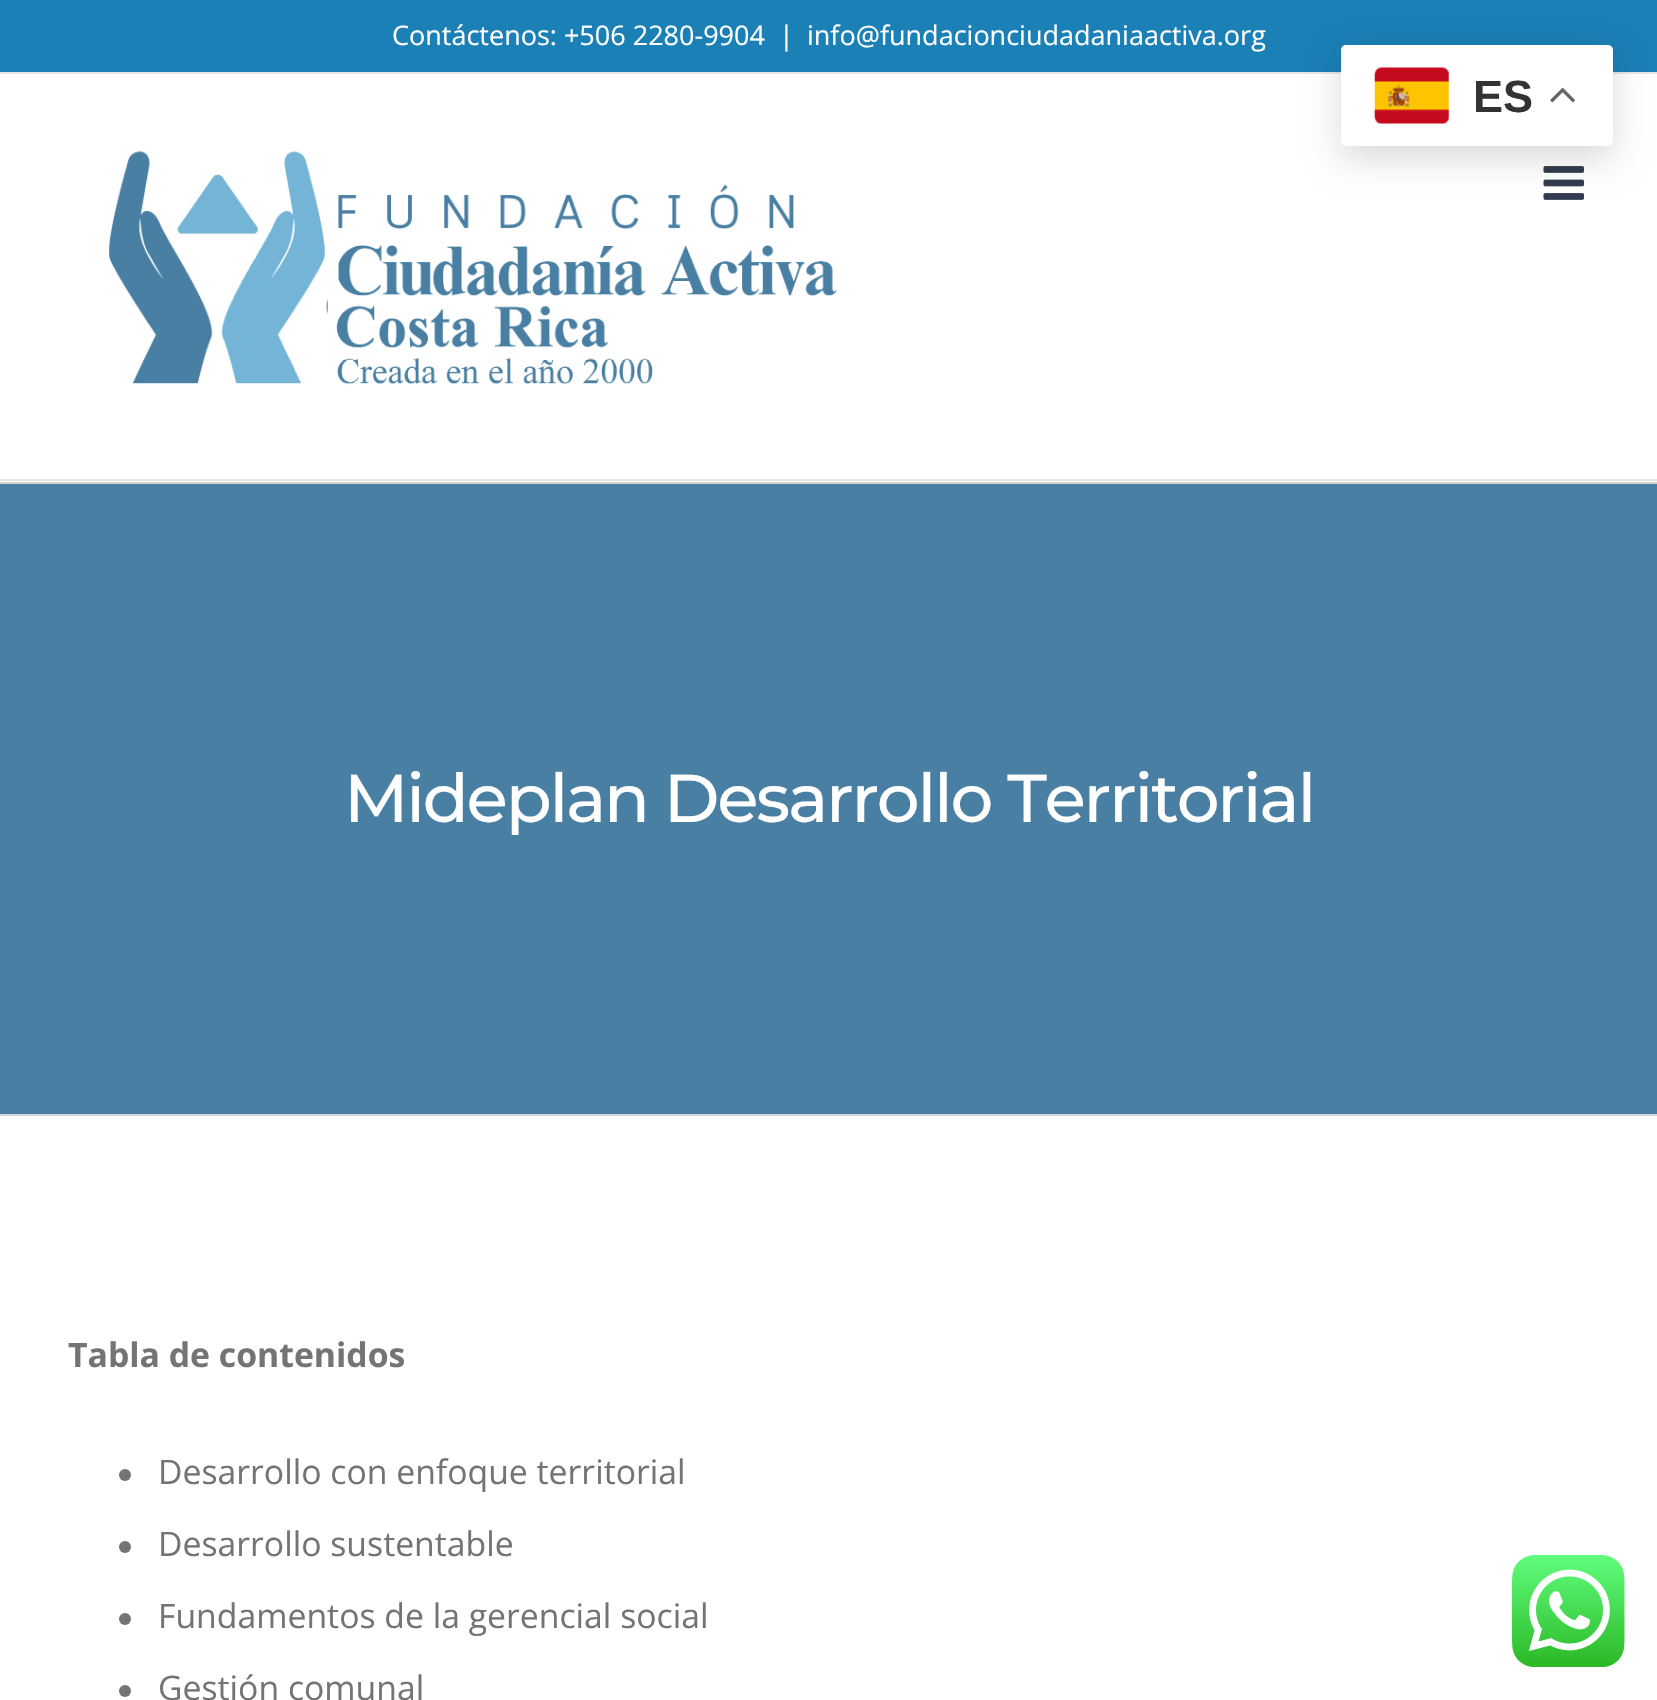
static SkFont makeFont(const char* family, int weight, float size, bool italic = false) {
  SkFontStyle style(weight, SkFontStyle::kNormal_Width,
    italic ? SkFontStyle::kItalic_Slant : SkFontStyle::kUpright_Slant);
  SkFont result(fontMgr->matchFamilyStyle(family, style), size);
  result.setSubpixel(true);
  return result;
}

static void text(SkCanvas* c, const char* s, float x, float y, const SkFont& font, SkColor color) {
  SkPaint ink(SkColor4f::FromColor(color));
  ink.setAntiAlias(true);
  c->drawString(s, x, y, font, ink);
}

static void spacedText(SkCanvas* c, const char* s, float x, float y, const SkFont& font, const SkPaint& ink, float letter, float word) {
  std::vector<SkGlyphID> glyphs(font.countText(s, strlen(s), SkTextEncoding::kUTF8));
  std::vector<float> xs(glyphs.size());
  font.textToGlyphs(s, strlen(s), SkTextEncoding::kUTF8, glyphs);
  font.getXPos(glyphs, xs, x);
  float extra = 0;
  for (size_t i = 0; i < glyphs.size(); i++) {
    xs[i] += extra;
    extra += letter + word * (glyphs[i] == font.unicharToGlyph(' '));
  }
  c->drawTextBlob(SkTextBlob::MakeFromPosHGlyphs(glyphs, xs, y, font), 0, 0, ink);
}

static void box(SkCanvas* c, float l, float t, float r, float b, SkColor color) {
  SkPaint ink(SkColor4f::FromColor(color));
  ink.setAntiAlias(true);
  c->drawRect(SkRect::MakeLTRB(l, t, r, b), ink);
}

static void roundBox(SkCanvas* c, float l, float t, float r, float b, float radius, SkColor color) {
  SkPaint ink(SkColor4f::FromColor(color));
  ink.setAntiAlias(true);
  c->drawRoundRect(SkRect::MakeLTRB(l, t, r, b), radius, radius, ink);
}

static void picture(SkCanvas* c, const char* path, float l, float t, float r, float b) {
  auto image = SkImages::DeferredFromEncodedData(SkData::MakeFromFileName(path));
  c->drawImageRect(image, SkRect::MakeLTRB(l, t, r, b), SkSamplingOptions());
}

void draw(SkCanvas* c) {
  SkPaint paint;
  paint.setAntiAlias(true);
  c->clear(0xffffffff);
  box(c, 0, 0, 1657, 72, 0xff1a80b6);
  box(c, 0, 72, 1657, 74, 0xffe5e5e5);
  SkFont face1 = makeFont("Open Sans", 400, 27);
  text(c, "Contáctenos: +506 2280-9904", 392, 45, face1, 0xffffffff);
  text(c, "|", 779, 45, face1, 0xffffffff);
  text(c, "info@fundacionciudadaniaactiva.org", 807, 45, face1, 0xffffffff);
  box(c, 0, 479, 1657, 481, 0xffe5e5e5);
  picture(c, "img_01.png", 109, 151, 837, 385);
  picture(c, "img_02.png", 1543, 166, 1584, 200);
  box(c, 0, 484, 1657, 1114, 0xff497fa3);
  box(c, 0, 482, 1657, 484, 0xffd2d3d4);
  box(c, 0, 1114, 1657, 1116, 0xffd2d3d4);
  SkFont face2 = makeFont("Montserrat", 500, 67.5f);
  paint.setColor(0xffffffff);
  spacedText(c, "Mideplan Desarrollo Territorial", 344, 822, face2, paint, -2.25f, 0);
  SkFont face3 = makeFont("Open Sans", 700, 33.75f);
  text(c, "Tabla de contenidos", 68, 1367, face3, 0xff747474);
  paint.setColor(0xff747474);
  c->drawCircle(125, 1475, 6, paint);
  SkFont face4 = makeFont("Open Sans", 400, 33.75f);
  text(c, "Desarrollo con enfoque territorial", 158, 1484, face4, 0xff747474);
  c->drawCircle(125, 1547, 6, paint);
  text(c, "Desarrollo sustentable", 158, 1556, face4, 0xff747474);
  c->drawCircle(125, 1619, 6, paint);
  text(c, "Fundamentos de la gerencial social", 158, 1628, face4, 0xff747474);
  c->drawCircle(125, 1691, 6, paint);
  text(c, "Gestión comunal", 158, 1700, face4, 0xff747474);
  paint.setColor(0x26000000);
  paint.setMaskFilter(SkMaskFilter::MakeBlur(kNormal_SkBlurStyle, 17));
  c->drawRoundRect(SkRect::MakeLTRB(1341, 56, 1613, 158), 5, 5, paint);
  paint.setMaskFilter(nullptr);
  roundBox(c, 1341, 45, 1613, 146, 5, 0xffffffff);
  picture(c, "img_03.png", 1374, 67, 1449, 124);
  SkFont face5 = makeFont("Liberation Sans", 700, 45);
  text(c, "ES", 1473, 112, face5, 0xff333333);
  picture(c, "img_04.png", 1550, 87, 1575, 103);
  picture(c, "img_05.png", 1512, 1555, 1625, 1667);
}
